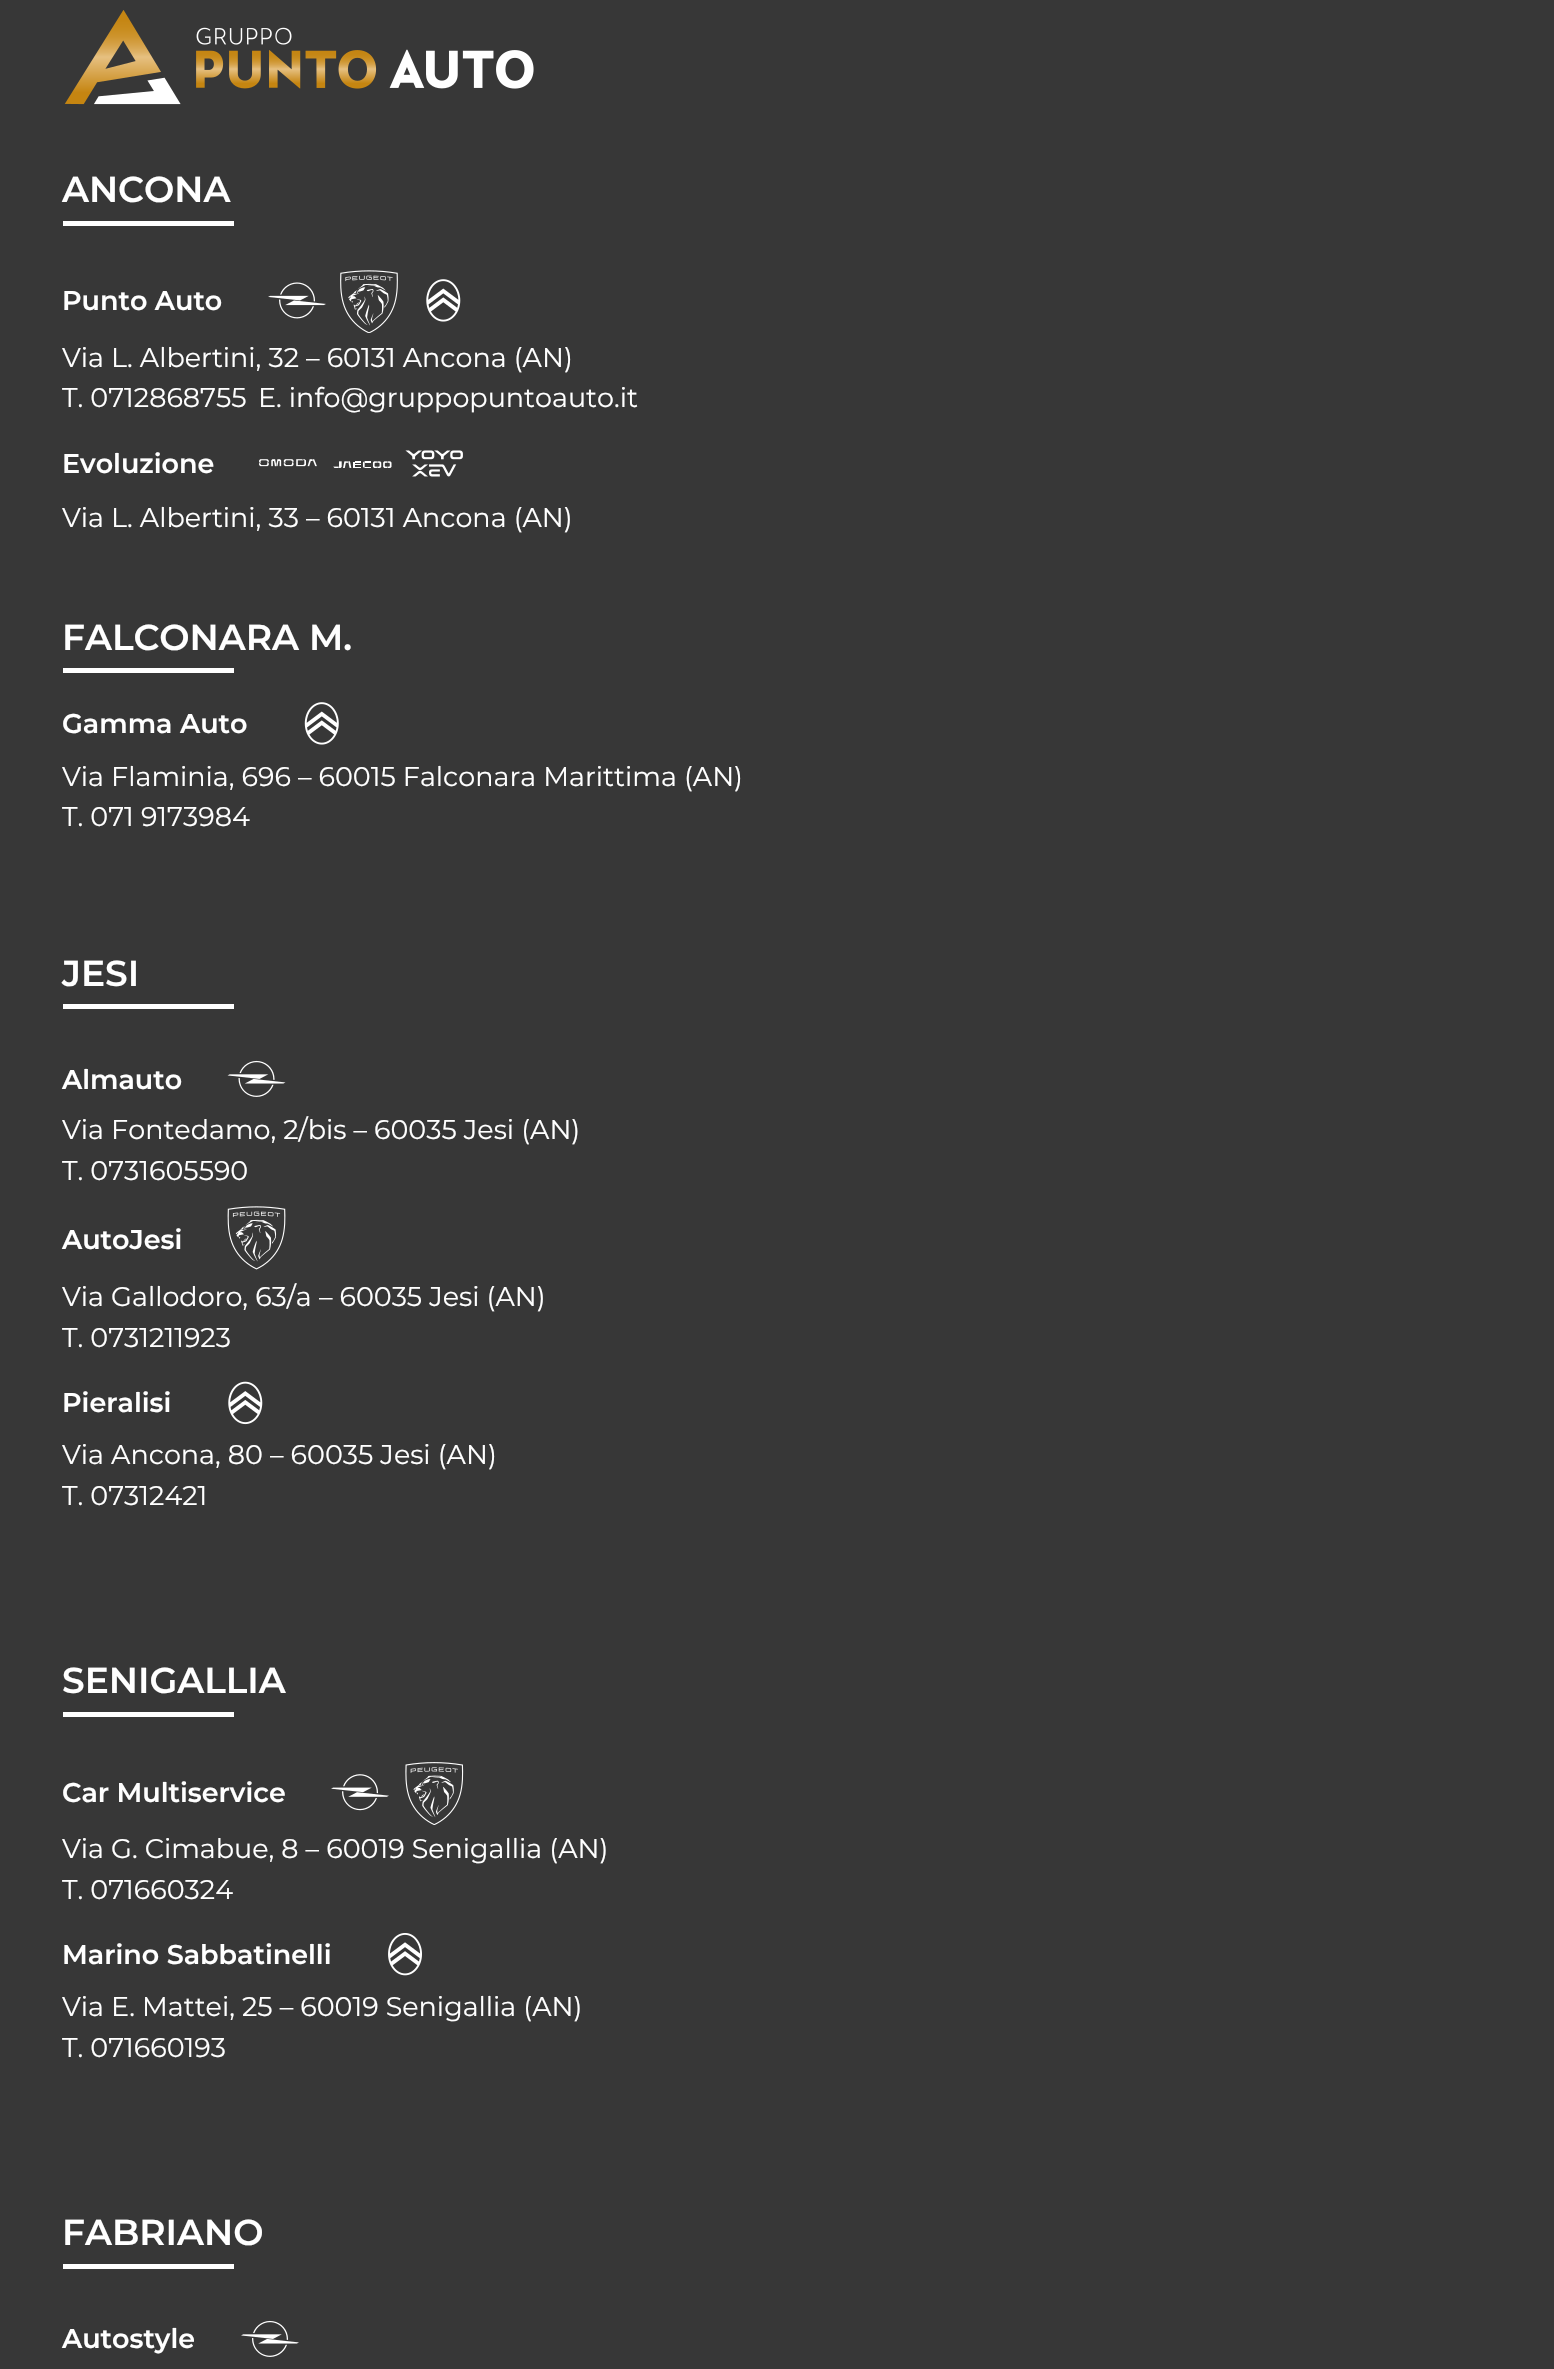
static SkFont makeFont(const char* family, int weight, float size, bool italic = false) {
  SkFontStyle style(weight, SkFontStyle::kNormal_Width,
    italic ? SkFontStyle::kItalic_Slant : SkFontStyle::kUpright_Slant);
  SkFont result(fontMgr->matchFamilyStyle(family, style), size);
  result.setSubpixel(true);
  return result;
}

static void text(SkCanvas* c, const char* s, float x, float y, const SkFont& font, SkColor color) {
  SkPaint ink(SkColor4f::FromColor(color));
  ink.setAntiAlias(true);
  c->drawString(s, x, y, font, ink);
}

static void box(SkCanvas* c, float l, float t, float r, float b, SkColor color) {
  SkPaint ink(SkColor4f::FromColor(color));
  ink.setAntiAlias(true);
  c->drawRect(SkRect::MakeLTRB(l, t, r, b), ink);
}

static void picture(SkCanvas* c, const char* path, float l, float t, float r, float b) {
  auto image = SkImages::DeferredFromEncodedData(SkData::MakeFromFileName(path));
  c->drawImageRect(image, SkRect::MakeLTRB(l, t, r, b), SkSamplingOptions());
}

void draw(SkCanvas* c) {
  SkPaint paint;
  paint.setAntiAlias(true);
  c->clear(0xff373737);
  picture(c, "img_01.png", 64, 10, 534, 105);
  SkFont face1 = makeFont("Montserrat", 600, 36);
  text(c, "ANCONA", 62, 202, face1, 0xffffffff);
  box(c, 63, 221, 234, 226, 0xffffffff);
  SkFont face2 = makeFont("Montserrat", 600, 27);
  text(c, "Punto Auto", 62, 310, face2, 0xffffffff);
  picture(c, "img_02.png", 268, 282, 326, 319);
  picture(c, "img_03.png", 340, 270, 398, 333);
  picture(c, "img_04.png", 426, 279, 461, 322);
  SkFont face3 = makeFont("Montserrat", 400, 27);
  text(c, "Via L. Albertini, 32 – 60131 Ancona (AN)", 62, 367, face3, 0xffffffff);
  text(c, "T. 0712868755", 62, 407, face3, 0xffffffff);
  text(c, "E. info@gruppopuntoauto.it", 258, 407, face3, 0xffffffff);
  text(c, "Evoluzione", 62, 473, face2, 0xffffffff);
  picture(c, "img_05.png", 259, 459, 317, 467);
  picture(c, "img_06.png", 333, 461, 392, 468);
  picture(c, "img_07.png", 405, 450, 463, 477);
  text(c, "Via L. Albertini, 33 – 60131 Ancona (AN)", 62, 527, face3, 0xffffffff);
  text(c, "FALCONARA M.", 62, 650, face1, 0xffffffff);
  box(c, 63, 668, 234, 673, 0xffffffff);
  text(c, "Gamma Auto", 62, 733, face2, 0xffffffff);
  picture(c, "img_08.png", 304, 702, 339, 745);
  text(c, "Via Flaminia, 696 – 60015 Falconara Marittima (AN)", 62, 786, face3, 0xffffffff);
  text(c, "T. 071 9173984", 62, 826, face3, 0xffffffff);
  text(c, "JESI", 62, 986, face1, 0xffffffff);
  box(c, 63, 1004, 234, 1009, 0xffffffff);
  text(c, "Almauto", 62, 1089, face2, 0xffffffff);
  picture(c, "img_09.png", 227, 1060, 286, 1097);
  text(c, "Via Fontedamo, 2/bis – 60035 Jesi (AN)", 62, 1139, face3, 0xffffffff);
  text(c, "T. 0731605590", 62, 1180, face3, 0xffffffff);
  text(c, "AutoJesi", 62, 1249, face2, 0xffffffff);
  picture(c, "img_10.png", 227, 1206, 286, 1270);
  text(c, "Via Gallodoro, 63/a – 60035 Jesi (AN)", 62, 1306, face3, 0xffffffff);
  text(c, "T. 0731211923", 62, 1347, face3, 0xffffffff);
  text(c, "Pieralisi", 62, 1412, face2, 0xffffffff);
  picture(c, "img_11.png", 228, 1381, 263, 1425);
  text(c, "Via Ancona, 80 – 60035 Jesi (AN)", 62, 1464, face3, 0xffffffff);
  text(c, "T. 07312421", 62, 1505, face3, 0xffffffff);
  text(c, "SENIGALLIA", 62, 1693, face1, 0xffffffff);
  box(c, 63, 1712, 234, 1717, 0xffffffff);
  text(c, "Car Multiservice", 62, 1802, face2, 0xffffffff);
  picture(c, "img_12.png", 331, 1774, 389, 1811);
  picture(c, "img_13.png", 405, 1762, 464, 1825);
  text(c, "Via G. Cimabue, 8 – 60019 Senigallia (AN)", 62, 1858, face3, 0xffffffff);
  text(c, "T. 071660324", 62, 1899, face3, 0xffffffff);
  text(c, "Marino Sabbatinelli", 62, 1964, face2, 0xffffffff);
  picture(c, "img_14.png", 388, 1933, 422, 1976);
  text(c, "Via E. Mattei, 25 – 60019 Senigallia (AN)", 62, 2016, face3, 0xffffffff);
  text(c, "T. 071660193", 62, 2057, face3, 0xffffffff);
  text(c, "FABRIANO", 62, 2245, face1, 0xffffffff);
  box(c, 63, 2264, 234, 2269, 0xffffffff);
  text(c, "Autostyle", 62, 2348, face2, 0xffffffff);
  picture(c, "img_15.png", 241, 2320, 299, 2357);
}
